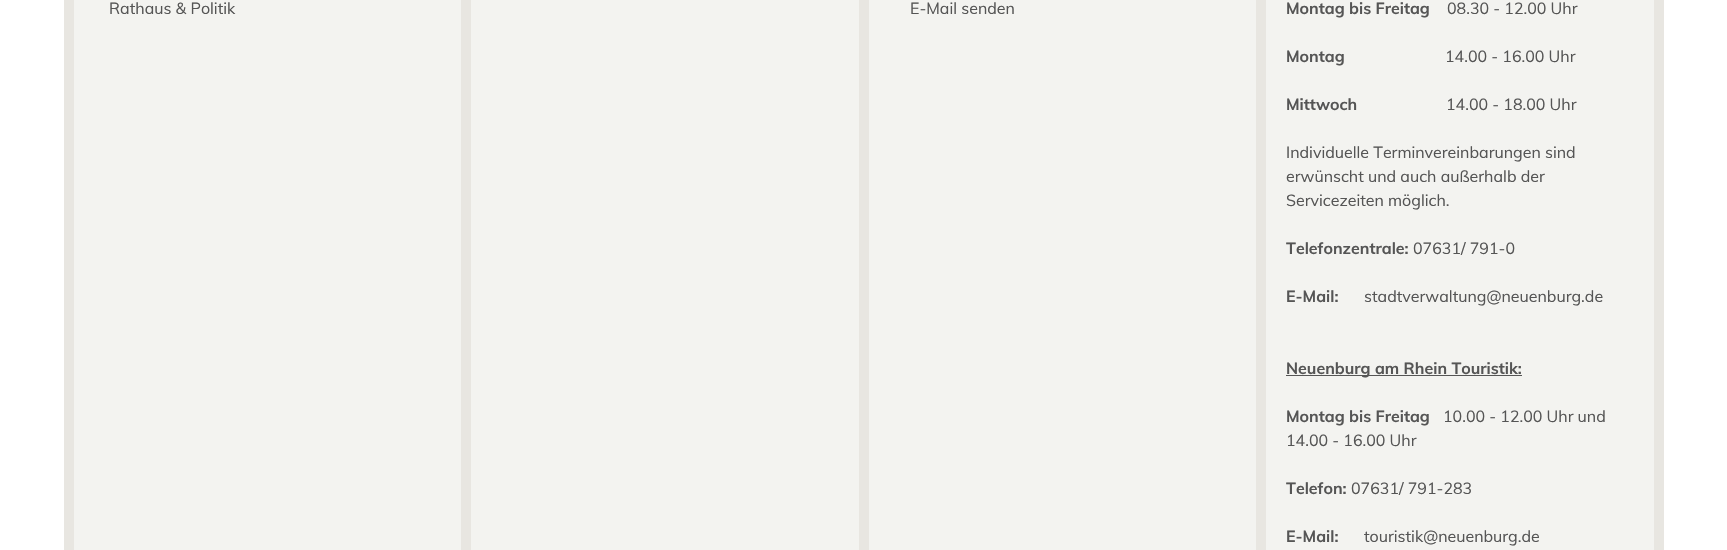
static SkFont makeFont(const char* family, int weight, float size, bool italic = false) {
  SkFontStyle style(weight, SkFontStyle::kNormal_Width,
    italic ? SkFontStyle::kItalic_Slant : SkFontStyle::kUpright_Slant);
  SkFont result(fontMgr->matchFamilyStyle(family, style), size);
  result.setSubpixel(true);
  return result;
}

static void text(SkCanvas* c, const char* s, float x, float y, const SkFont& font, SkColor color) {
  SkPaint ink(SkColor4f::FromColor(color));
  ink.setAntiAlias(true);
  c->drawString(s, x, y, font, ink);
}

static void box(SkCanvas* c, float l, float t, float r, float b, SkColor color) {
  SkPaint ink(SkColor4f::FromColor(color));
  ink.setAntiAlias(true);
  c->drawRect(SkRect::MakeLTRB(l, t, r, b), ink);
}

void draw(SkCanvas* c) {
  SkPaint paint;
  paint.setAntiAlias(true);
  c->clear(0xffffffff);
  box(c, 64, 0, 1664, 550, 0xffe8e6e1);
  box(c, 74, 0, 461, 550, 0xfff3f3f0);
  SkFont face1 = makeFont("Muli", 400, 16);
  text(c, "Rathaus & Politik", 109, 14, face1, 0xff555555);
  box(c, 471, 0, 859, 550, 0xfff3f3f0);
  box(c, 869, 0, 1256, 550, 0xfff3f3f0);
  text(c, "E-Mail senden", 910, 14, face1, 0xff555555);
  box(c, 1266, 0, 1654, 550, 0xfff3f3f0);
  SkFont face2 = makeFont("Muli", 700, 16);
  text(c, "Montag bis Freitag", 1286, 14, face2, 0xff555555);
  text(c, "08.30 - 12.00 Uhr", 1447, 14, face1, 0xff555555);
  text(c, "Montag", 1286, 62, face2, 0xff555555);
  text(c, "14.00 - 16.00 Uhr", 1445, 62, face1, 0xff555555);
  text(c, "Mittwoch", 1286, 110, face2, 0xff555555);
  text(c, "14.00 - 18.00 Uhr", 1446, 110, face1, 0xff555555);
  text(c, "Individuelle Terminvereinbarungen sind", 1286, 158, face1, 0xff555555);
  text(c, "erwünscht und auch außerhalb der", 1286, 182, face1, 0xff555555);
  text(c, "Servicezeiten möglich.", 1286, 206, face1, 0xff555555);
  text(c, "Telefonzentrale:", 1286, 254, face2, 0xff555555);
  text(c, "07631/ 791-0", 1413, 254, face1, 0xff555555);
  text(c, "E-Mail:", 1286, 302, face2, 0xff555555);
  text(c, "stadtverwaltung@neuenburg.de", 1364, 302, face1, 0xff555555);
  box(c, 1286, 375, 1522, 376, 0xff555555);
  text(c, "Neuenburg am Rhein Touristik:", 1286, 374, face2, 0xff555555);
  text(c, "Montag bis Freitag", 1286, 422, face2, 0xff555555);
  text(c, "10.00 - 12.00 Uhr und", 1443, 422, face1, 0xff555555);
  text(c, "14.00 - 16.00 Uhr", 1286, 446, face1, 0xff555555);
  text(c, "Telefon:", 1286, 494, face2, 0xff555555);
  text(c, "07631/ 791-283", 1351, 494, face1, 0xff555555);
  text(c, "E-Mail:", 1286, 542, face2, 0xff555555);
  text(c, "touristik@neuenburg.de", 1364, 542, face1, 0xff555555);
}
